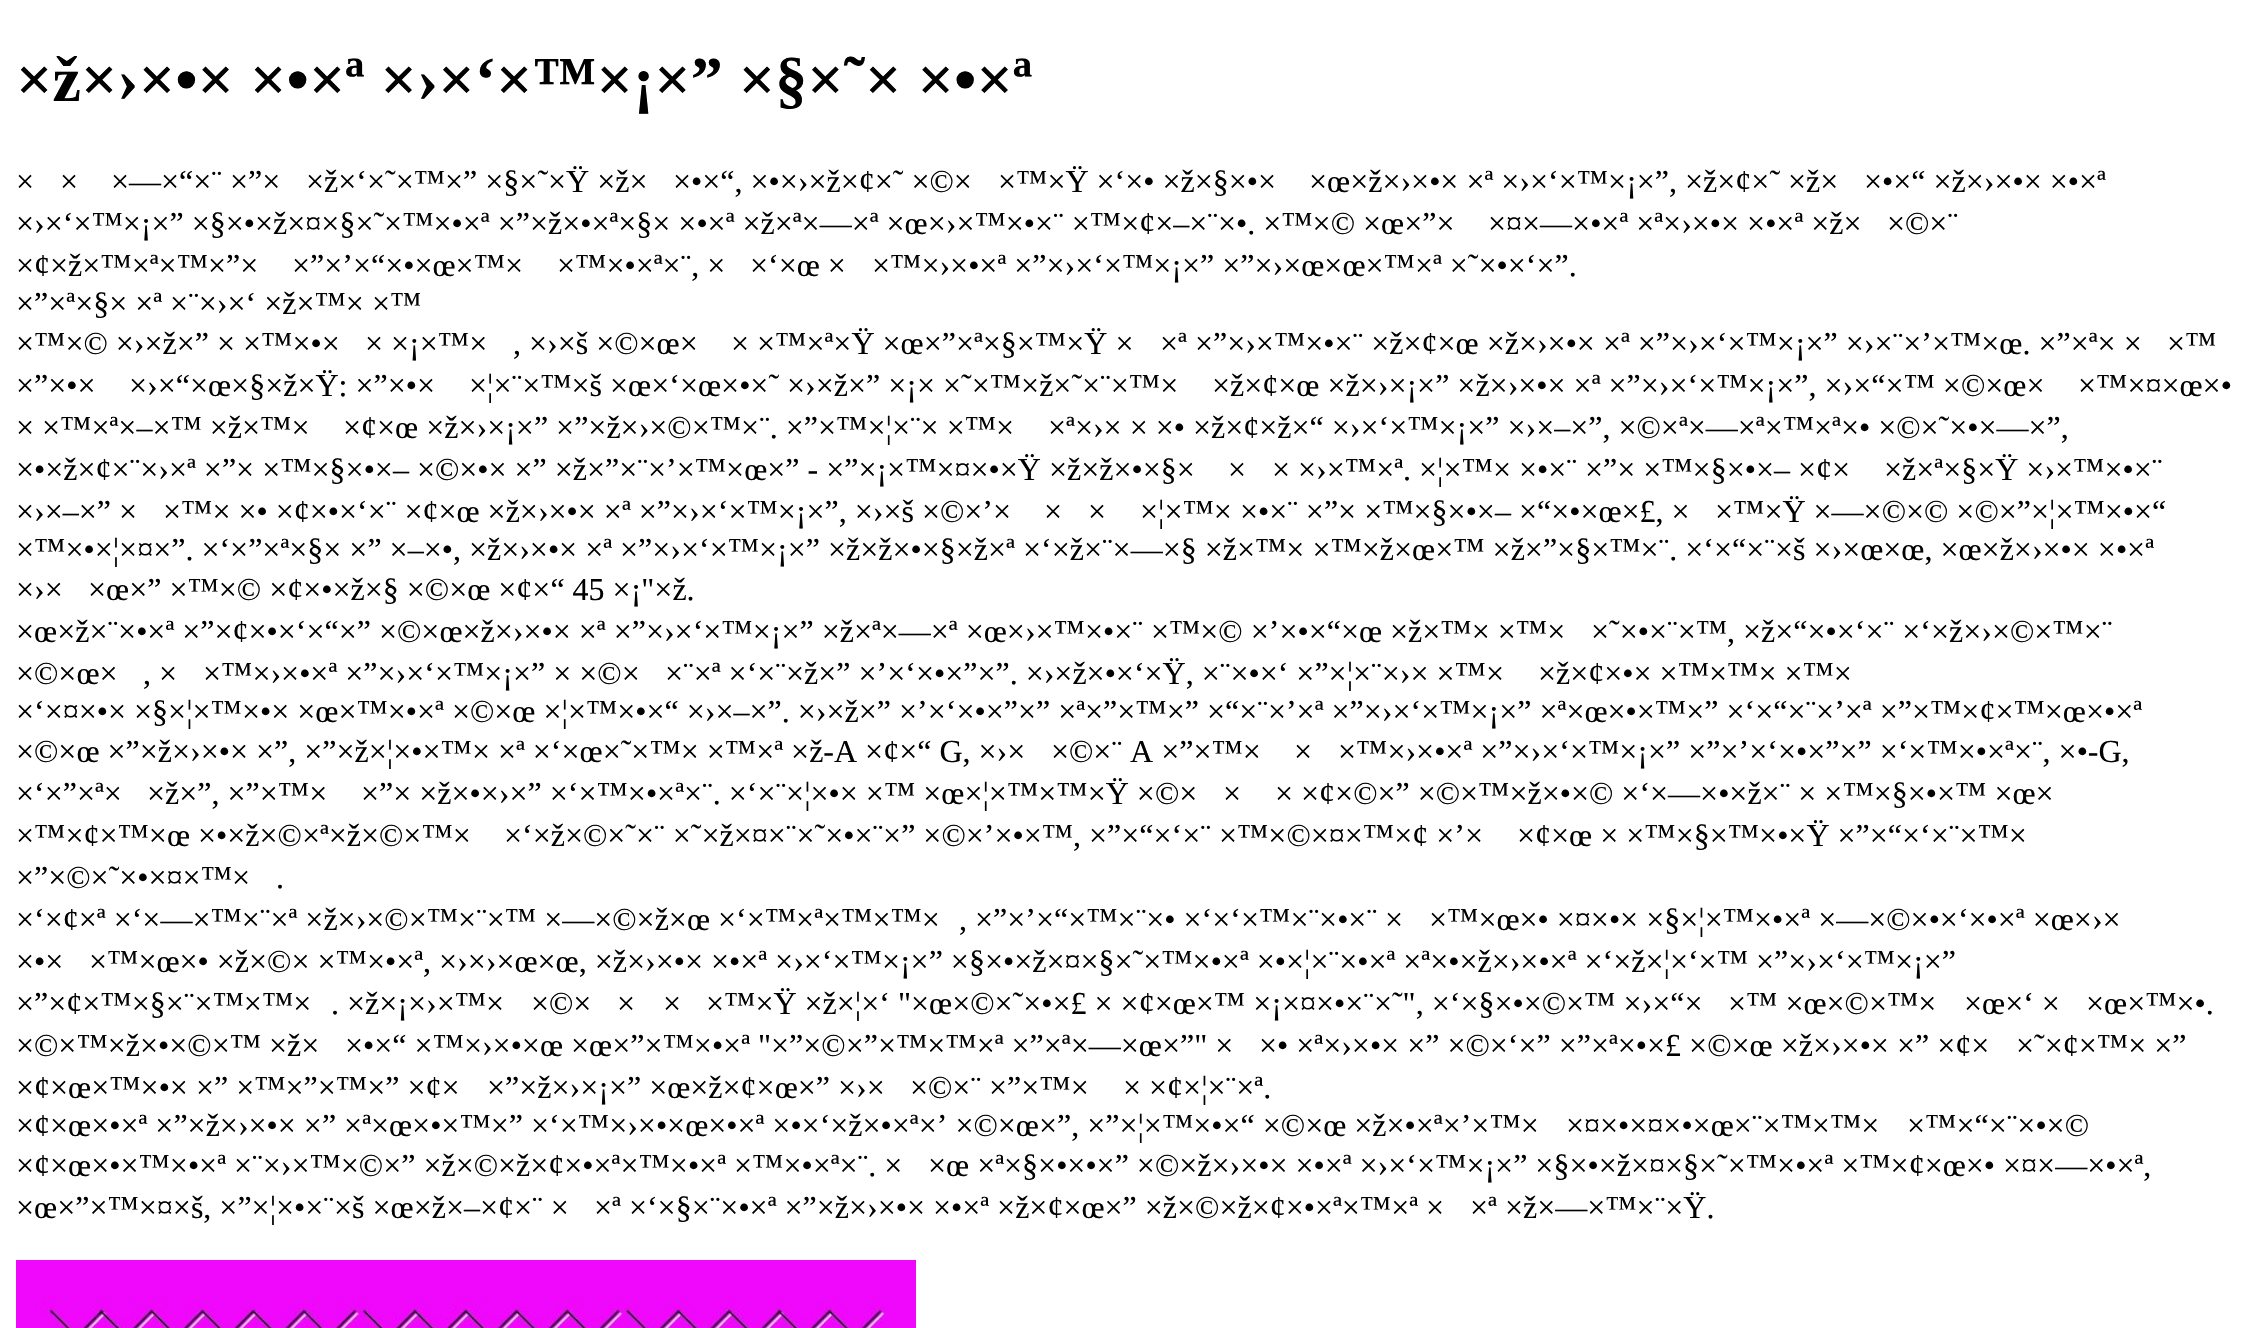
static SkFont makeFont(const char* family, int weight, float size, bool italic = false) {
  SkFontStyle style(weight, SkFontStyle::kNormal_Width,
    italic ? SkFontStyle::kItalic_Slant : SkFontStyle::kUpright_Slant);
  SkFont result(fontMgr->matchFamilyStyle(family, style), size);
  result.setSubpixel(true);
  return result;
}

static void text(SkCanvas* c, const char* s, float x, float y, const SkFont& font, SkColor color) {
  SkPaint ink(SkColor4f::FromColor(color));
  ink.setAntiAlias(true);
  c->drawString(s, x, y, font, ink);
}

static void picture(SkCanvas* c, const char* path, float l, float t, float r, float b) {
  auto image = SkImages::DeferredFromEncodedData(SkData::MakeFromFileName(path));
  c->drawImageRect(image, SkRect::MakeLTRB(l, t, r, b), SkSamplingOptions());
}

void draw(SkCanvas* c) {
  SkPaint paint;
  paint.setAntiAlias(true);
  c->clear(0xffffffff);
  SkFont face1 = makeFont("Liberation Serif", 700, 64);
  text(c, "×ž×›×•× ×•×ª ×›×‘×™×¡×” ×§×˜× ×•×ª", 16, 101, face1, 0xff000000);
  SkFont face2 = makeFont("Liberation Serif", 400, 32);
  text(c, "×", 16, 192, face2, 0xff000000);
  text(c, "×", 60, 192, face2, 0xff000000);
  text(c, "×—×“×¨ ×”×", 111, 192, face2, 0xff000000);
  text(c, "×ž×‘×˜×™×” ×§×˜×Ÿ ×ž×", 306, 192, face2, 0xff000000);
  text(c, "×•×“, ×•×›×ž×¢×˜ ×©×", 673, 192, face2, 0xff000000);
  text(c, "×™×Ÿ ×‘×• ×ž×§×•×", 998, 192, face2, 0xff000000);
  text(c, "×œ×ž×›×•× ×ª ×›×‘×™×¡×”, ×ž×¢×˜ ×ž×", 1309, 192, face2, 0xff000000);
  text(c, "×•×“ ×ž×›×•× ×•×ª", 1864, 192, face2, 0xff000000);
  text(c, "×›×‘×™×¡×” ×§×•×ž×¤×§×˜×™×•×ª ×”×ž×•×ª×§× ×•×ª ×ž×ª×—×ª ×œ×›×™×•×¨ ×™×¢×–×¨×•. ×™×© ×œ×”×", 16, 234, face2, 0xff000000);
  text(c, "×¤×—×•×ª ×ª×›×•× ×•×ª ×ž×", 1488, 234, face2, 0xff000000);
  text(c, "×©×¨", 1887, 234, face2, 0xff000000);
  text(c, "×¢×ž×™×ª×™×”×", 16, 276, face2, 0xff000000);
  text(c, "×”×’×“×•×œ×™×", 292, 276, face2, 0xff000000);
  text(c, "×™×•×ª×¨, ×", 557, 276, face2, 0xff000000);
  text(c, "×‘×œ ×", 750, 276, face2, 0xff000000);
  text(c, "×™×›×•×ª ×”×›×‘×™×¡×” ×”×›×œ×œ×™×ª ×˜×•×‘×”.", 872, 276, face2, 0xff000000);
  text(c, "×”×ª×§× ×ª ×¨×›×‘ ×ž×™× ×™", 16, 314, face2, 0xff000000);
  text(c, "×™×© ×›×ž×” × ×™×•×", 16, 354, face2, 0xff000000);
  text(c, "× ×¡×™×", 365, 354, face2, 0xff000000);
  text(c, ", ×›×š ×©×œ×", 513, 354, face2, 0xff000000);
  text(c, "× ×™×ª×Ÿ ×œ×”×ª×§×™×Ÿ ×", 731, 354, face2, 0xff000000);
  text(c, "×ª ×”×›×™×•×¨ ×ž×¢×œ ×ž×›×•× ×ª ×”×›×‘×™×¡×” ×›×¨×’×™×œ. ×”×ª× ×", 1160, 354, face2, 0xff000000);
  text(c, "×™", 2167, 354, face2, 0xff000000);
  text(c, "×”×•×", 16, 396, face2, 0xff000000);
  text(c, "×›×“×œ×§×ž×Ÿ: ×”×•×", 129, 396, face2, 0xff000000);
  text(c, "×¦×¨×™×š ×œ×‘×œ×•×˜ ×›×ž×” ×¡× ×˜×™×ž×˜×¨×™×", 469, 396, face2, 0xff000000);
  text(c, "×ž×¢×œ ×ž×›×¡×” ×ž×›×•× ×ª ×”×›×‘×™×¡×”, ×›×“×™ ×©×œ×", 1212, 396, face2, 0xff000000);
  text(c, "×™×¤×œ×•", 2078, 396, face2, 0xff000000);
  text(c, "× ×™×ª×–×™ ×ž×™×", 16, 438, face2, 0xff000000);
  text(c, "×¢×œ ×ž×›×¡×” ×”×ž×›×©×™×¨. ×”×™×¦×¨× ×™×", 343, 438, face2, 0xff000000);
  text(c, "×ª×›× × ×• ×ž×¢×ž×“ ×›×‘×™×¡×” ×›×–×”, ×©×ª×—×ª×™×ª×• ×©×˜×•×—×”,", 1048, 438, face2, 0xff000000);
  text(c, "×•×ž×¢×¨×›×ª ×”× ×™×§×•×– ×©×•× ×” ×ž×”×¨×’×™×œ×” - ×”×¡×™×¤×•×Ÿ ×ž×ž×•×§×", 16, 480, face2, 0xff000000);
  text(c, "×", 1228, 480, face2, 0xff000000);
  text(c, "× ×›×™×ª. ×¦×™× ×•×¨ ×”× ×™×§×•×– ×¢×", 1272, 480, face2, 0xff000000);
  text(c, "×ž×ª×§×Ÿ ×›×™×•×¨", 1884, 480, face2, 0xff000000);
  text(c, "×›×–×” ×", 16, 522, face2, 0xff000000);
  text(c, "×™× ×• ×¢×•×‘×¨ ×¢×œ ×ž×›×•× ×ª ×”×›×‘×™×¡×”, ×›×š ×©×’×", 163, 522, face2, 0xff000000);
  text(c, "×", 1044, 522, face2, 0xff000000);
  text(c, "×", 1088, 522, face2, 0xff000000);
  text(c, "×¦×™× ×•×¨ ×”× ×™×§×•×– ×“×•×œ×£, ×", 1140, 522, face2, 0xff000000);
  text(c, "×™×Ÿ ×—×©×© ×©×”×¦×™×•×“", 1715, 522, face2, 0xff000000);
  text(c, "×™×•×¦×¤×”. ×‘×”×ª×§× ×” ×–×•, ×ž×›×•× ×ª ×”×›×‘×™×¡×” ×ž×ž×•×§×ž×ª ×‘×ž×¨×—×§ ×ž×™× ×™×ž×œ×™ ×ž×”×§×™×¨. ×‘×“×¨×š ×›×œ×œ, ×œ×ž×›×•× ×•×ª", 16, 560, face2, 0xff000000);
  text(c, "×›×", 16, 600, face2, 0xff000000);
  text(c, "×œ×” ×™×© ×¢×•×ž×§ ×©×œ ×¢×“ 45 ×¡\"×ž.", 88, 600, face2, 0xff000000);
  text(c, "×œ×ž×¨×•×ª ×”×¢×•×‘×“×” ×©×œ×ž×›×•× ×ª ×”×›×‘×™×¡×” ×ž×ª×—×ª ×œ×›×™×•×¨ ×™×© ×’×•×“×œ ×ž×™× ×™×", 16, 642, face2, 0xff000000);
  text(c, "×˜×•×¨×™, ×ž×“×•×‘×¨ ×‘×ž×›×©×™×¨", 1591, 642, face2, 0xff000000);
  text(c, "×©×œ×", 16, 684, face2, 0xff000000);
  text(c, ", ×", 143, 684, face2, 0xff000000);
  text(c, "×™×›×•×ª ×”×›×‘×™×¡×” × ×©×", 203, 684, face2, 0xff000000);
  text(c, "×¨×ª ×‘×¨×ž×” ×’×‘×•×”×”. ×›×ž×•×‘×Ÿ, ×¨×•×‘ ×”×¦×¨×›× ×™×", 665, 684, face2, 0xff000000);
  text(c, "×ž×¢×•× ×™×™× ×™×", 1538, 684, face2, 0xff000000);
  text(c, "×‘×¤×•× ×§×¦×™×•× ×œ×™×•×ª ×©×œ ×¦×™×•×“ ×›×–×”. ×›×ž×” ×’×‘×•×”×” ×ª×”×™×” ×“×¨×’×ª ×”×›×‘×™×¡×” ×ª×œ×•×™×” ×‘×“×¨×’×ª ×”×™×¢×™×œ×•×ª", 16, 722, face2, 0xff000000);
  text(c, "×©×œ ×”×ž×›×•× ×”, ×”×ž×¦×•×™× ×ª ×‘×œ×˜×™× ×™×ª ×ž-A ×¢×“ G, ×›×", 16, 762, face2, 0xff000000);
  text(c, "×©×¨ A ×”×™×", 1051, 762, face2, 0xff000000);
  text(c, "×", 1294, 762, face2, 0xff000000);
  text(c, "×™×›×•×ª ×”×›×‘×™×¡×” ×”×’×‘×•×”×” ×‘×™×•×ª×¨, ×•-G,", 1338, 762, face2, 0xff000000);
  text(c, "×‘×”×ª×", 16, 804, face2, 0xff000000);
  text(c, "×ž×”, ×”×™×", 147, 804, face2, 0xff000000);
  text(c, "×”× ×ž×•×›×” ×‘×™×•×ª×¨. ×‘×¨×¦×•× ×™ ×œ×¦×™×™×Ÿ ×©×", 361, 804, face2, 0xff000000);
  text(c, "×", 1223, 804, face2, 0xff000000);
  text(c, "× ×¢×©×” ×©×™×ž×•×© ×‘×—×•×ž×¨ × ×™×§×•×™ ×œ×", 1275, 804, face2, 0xff000000);
  text(c, "×™×¢×™×œ ×•×ž×©×ª×ž×©×™×", 16, 846, face2, 0xff000000);
  text(c, "×‘×ž×©×˜×¨ ×˜×ž×¤×¨×˜×•×¨×” ×©×’×•×™, ×”×“×‘×¨ ×™×©×¤×™×¢ ×’×", 504, 846, face2, 0xff000000);
  text(c, "×¢×œ × ×™×§×™×•×Ÿ ×”×“×‘×¨×™×", 1517, 846, face2, 0xff000000);
  text(c, "×”×©×˜×•×¤×™×", 16, 888, face2, 0xff000000);
  text(c, ".", 276, 888, face2, 0xff000000);
  text(c, "×‘×¢×ª ×‘×—×™×¨×ª ×ž×›×©×™×¨×™ ×—×©×ž×œ ×‘×™×ª×™×™×", 16, 930, face2, 0xff000000);
  text(c, ", ×”×’×“×™×¨×• ×‘×‘×™×¨×•×¨ ×", 959, 930, face2, 0xff000000);
  text(c, "×™×œ×• ×¤×•× ×§×¦×™×•×ª ×—×©×•×‘×•×ª ×œ×›×", 1429, 930, face2, 0xff000000);
  text(c, "×•×", 16, 972, face2, 0xff000000);
  text(c, "×™×œ×• ×ž×©× ×™×•×ª, ×›×›×œ×œ, ×ž×›×•× ×•×ª ×›×‘×™×¡×” ×§×•×ž×¤×§×˜×™×•×ª ×•×¦×¨×•×ª ×ª×•×ž×›×•×ª ×‘×ž×¦×‘×™ ×”×›×‘×™×¡×”", 89, 972, face2, 0xff000000);
  text(c, "×”×¢×™×§×¨×™×™×", 16, 1014, face2, 0xff000000);
  text(c, ". ×ž×¡×›×™×", 331, 1014, face2, 0xff000000);
  text(c, "×©×", 531, 1014, face2, 0xff000000);
  text(c, "×", 617, 1014, face2, 0xff000000);
  text(c, "×", 663, 1014, face2, 0xff000000);
  text(c, "×™×Ÿ ×ž×¦×‘ \"×œ×©×˜×•×£ × ×¢×œ×™ ×¡×¤×•×¨×˜\", ×‘×§×•×©×™ ×›×“×", 706, 1014, face2, 0xff000000);
  text(c, "×™ ×œ×©×™×", 1728, 1014, face2, 0xff000000);
  text(c, "×œ×‘ ×", 1964, 1014, face2, 0xff000000);
  text(c, "×œ×™×•.", 2086, 1014, face2, 0xff000000);
  text(c, "×©×™×ž×•×©×™ ×ž×", 16, 1056, face2, 0xff000000);
  text(c, "×•×“ ×™×›×•×œ ×œ×”×™×•×ª \"×”×©×”×™×™×ª ×”×ª×—×œ×”\" ×", 345, 1056, face2, 0xff000000);
  text(c, "×• ×ª×›×•× ×” ×©×‘×” ×”×ª×•×£ ×©×œ ×ž×›×•× ×” ×¢×", 1259, 1056, face2, 0xff000000);
  text(c, "×˜×¢×™× ×”", 2016, 1056, face2, 0xff000000);
  text(c, "×¢×œ×™×•× ×” ×™×”×™×” ×¢×", 16, 1098, face2, 0xff000000);
  text(c, "×”×ž×›×¡×” ×œ×ž×¢×œ×” ×›×", 487, 1098, face2, 0xff000000);
  text(c, "×©×¨ ×”×™×", 910, 1098, face2, 0xff000000);
  text(c, "× ×¢×¦×¨×ª.", 1123, 1098, face2, 0xff000000);
  text(c, "×¢×œ×•×ª ×”×ž×›×•× ×” ×ª×œ×•×™×” ×‘×™×›×•×œ×•×ª ×•×‘×ž×•×ª×’ ×©×œ×”, ×”×¦×™×•×“ ×©×œ ×ž×•×ª×’×™×", 16, 1136, face2, 0xff000000);
  text(c, "×¤×•×¤×•×œ×¨×™×™×", 1566, 1136, face2, 0xff000000);
  text(c, "×™×“×¨×•×©", 1907, 1136, face2, 0xff000000);
  text(c, "×¢×œ×•×™×•×ª ×¨×›×™×©×” ×ž×©×ž×¢×•×ª×™×•×ª ×™×•×ª×¨. ×", 16, 1176, face2, 0xff000000);
  text(c, "×œ ×ª×§×•×•×” ×©×ž×›×•× ×•×ª ×›×‘×™×¡×” ×§×•×ž×¤×§×˜×™×•×ª ×™×¢×œ×• ×¤×—×•×ª,", 928, 1176, face2, 0xff000000);
  text(c, "×œ×”×™×¤×š, ×”×¦×•×¨×š ×œ×ž×–×¢×¨ ×", 16, 1218, face2, 0xff000000);
  text(c, "×ª ×‘×§×¨×•×ª ×”×ž×›×•× ×•×ª ×ž×¢×œ×” ×ž×©×ž×¢×•×ª×™×ª ×", 594, 1218, face2, 0xff000000);
  text(c, "×ª ×ž×—×™×¨×Ÿ.", 1470, 1218, face2, 0xff000000);
  picture(c, "img_01.png", 16, 1260, 916, 1328);
}
